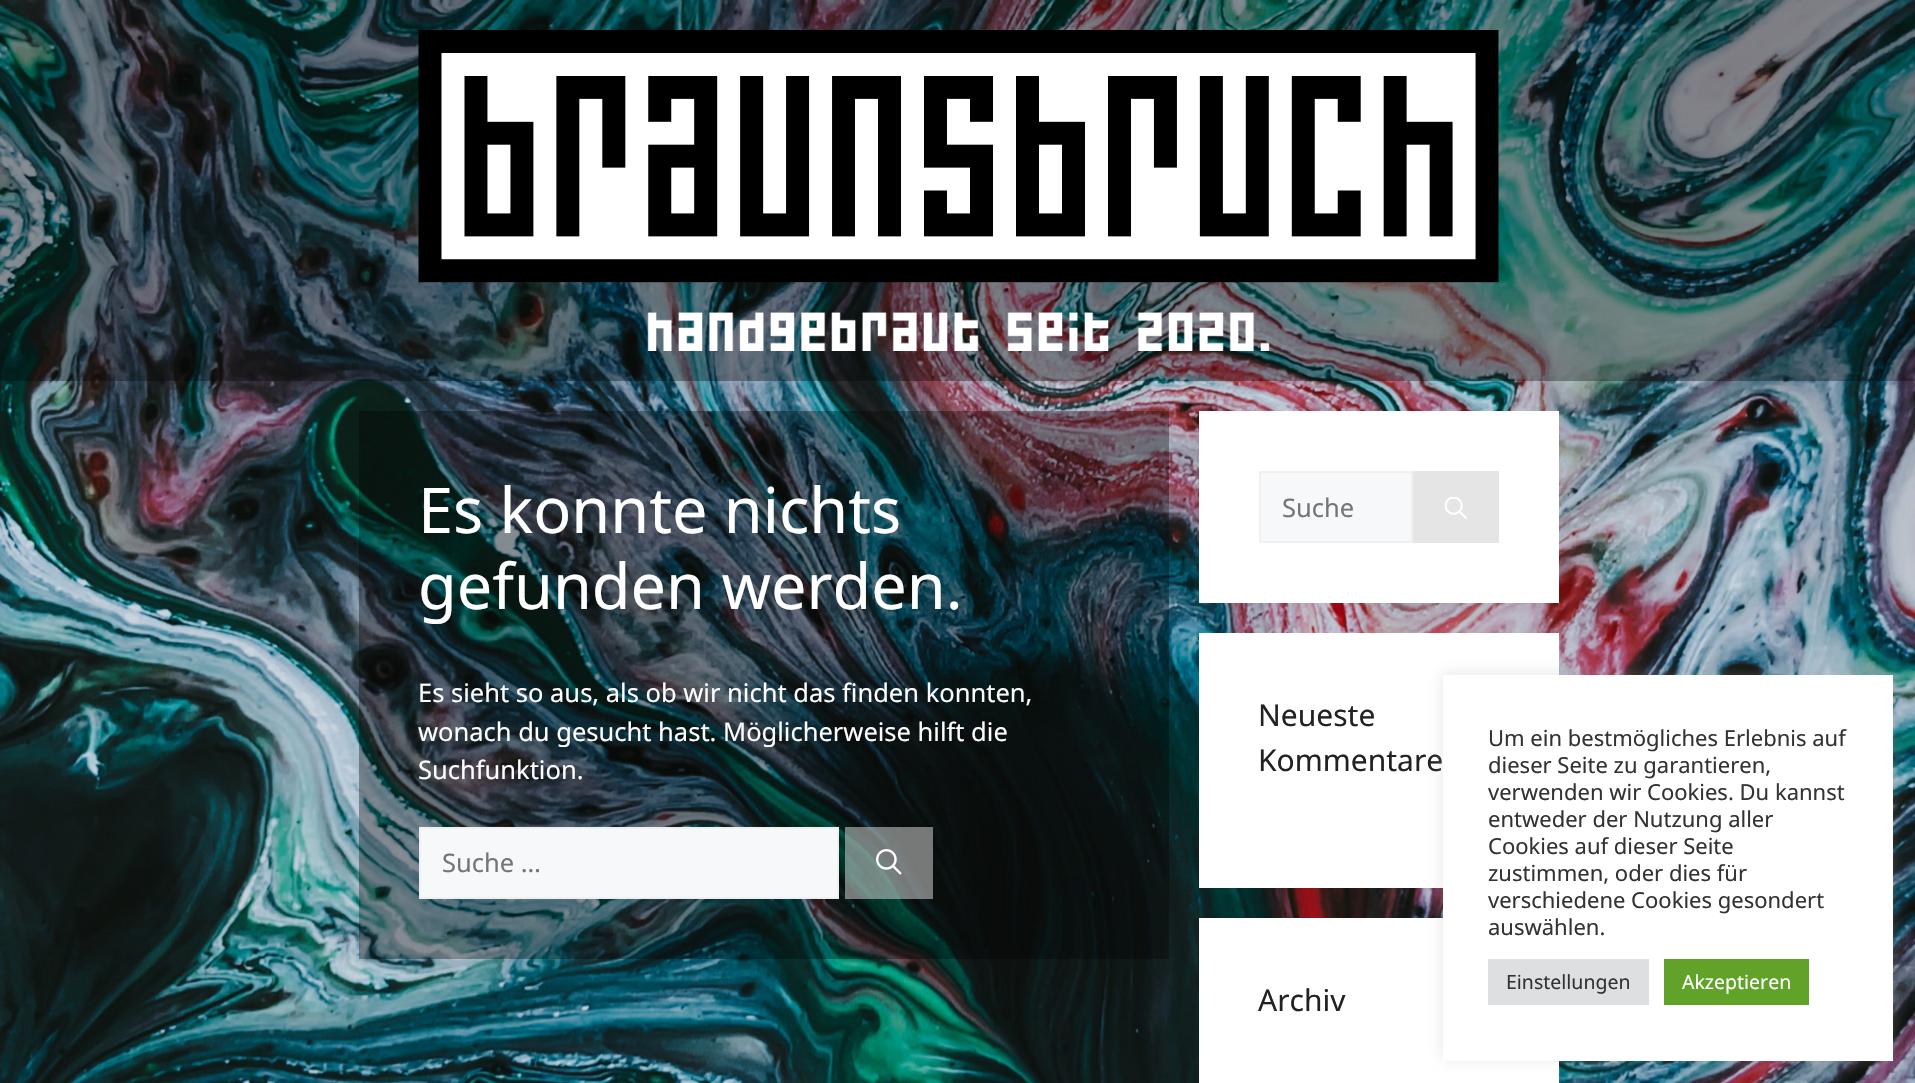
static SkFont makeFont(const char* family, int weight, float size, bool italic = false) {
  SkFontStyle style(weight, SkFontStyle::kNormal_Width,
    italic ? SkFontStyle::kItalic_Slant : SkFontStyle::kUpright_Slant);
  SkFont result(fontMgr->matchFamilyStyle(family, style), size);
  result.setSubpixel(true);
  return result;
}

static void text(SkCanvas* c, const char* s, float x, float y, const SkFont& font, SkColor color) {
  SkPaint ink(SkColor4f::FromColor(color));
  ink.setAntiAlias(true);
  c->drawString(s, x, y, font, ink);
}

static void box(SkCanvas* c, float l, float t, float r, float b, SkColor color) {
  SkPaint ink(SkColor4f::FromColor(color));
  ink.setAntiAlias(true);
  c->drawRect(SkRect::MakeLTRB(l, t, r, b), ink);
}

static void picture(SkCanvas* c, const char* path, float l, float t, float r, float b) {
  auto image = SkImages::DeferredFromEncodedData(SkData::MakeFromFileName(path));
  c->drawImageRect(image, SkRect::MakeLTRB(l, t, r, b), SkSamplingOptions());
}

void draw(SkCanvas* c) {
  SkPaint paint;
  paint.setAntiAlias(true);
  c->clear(0xffffffff);
  picture(c, "img_01.png", 0, 0, 1915, 1083);
  box(c, 0, 0, 1915, 381, 0x57000000);
  picture(c, "img_02.png", 418, 30, 1499, 351);
  box(c, 359, 411, 1169, 959, 0x57000000);
  SkFont face1 = makeFont("Noto Sans", 400, 63);
  text(c, "Es konnte nichts", 418, 533, face1, 0xffffffff);
  text(c, "gefunden werden.", 418, 609, face1, 0xffffffff);
  SkFont face2 = makeFont("Noto Sans", 400, 25.5f);
  text(c, "Es sieht so aus, als ob wir nicht das finden konnten,", 418, 702, face2, 0xffffffff);
  text(c, "wonach du gesucht hast. Möglicherweise hilft die", 418, 741, face2, 0xffffffff);
  text(c, "Suchfunktion.", 418, 779, face2, 0xffffffff);
  paint.setColor(0xfff7f8f9);
  c->drawRect(SkRect::MakeLTRB(420, 828, 838, 898), paint);
  paint.setStyle(SkPaint::kStroke_Style);
  paint.setStrokeWidth(2);
  paint.setColor(0xfff0f0f0);
  c->drawRect(SkRect::MakeLTRB(420, 828, 838, 898), paint);
  text(c, "Suche …", 442, 872, face2, 0xff757575);
  box(c, 845, 827, 933, 899, 0x8cd0d0d0);
  picture(c, "img_03.png", 876, 849, 902, 875);
  box(c, 1199, 411, 1559, 603, 0xffffffff);
  paint.setStyle(SkPaint::kFill_Style);
  paint.setColor(0xfff7f8f9);
  c->drawRect(SkRect::MakeLTRB(1260, 472, 1412, 542), paint);
  paint.setStyle(SkPaint::kStroke_Style);
  paint.setColor(0xfff0f0f0);
  c->drawRect(SkRect::MakeLTRB(1260, 472, 1412, 542), paint);
  text(c, "Suche", 1282, 517, face2, 0xff757575);
  box(c, 1413, 471, 1499, 543, 0xffe5e5e5);
  picture(c, "img_04.png", 1445, 497, 1467, 519);
  box(c, 1199, 633, 1559, 888, 0xffffffff);
  SkFont face3 = makeFont("Noto Sans", 400, 30);
  text(c, "Neueste", 1258, 726, face3, 0xff222222);
  text(c, "Kommentare", 1258, 771, face3, 0xff222222);
  box(c, 1199, 918, 1559, 1083, 0xffffffff);
  text(c, "Archiv", 1258, 1011, face3, 0xff222222);
  paint.setStyle(SkPaint::kFill_Style);
  paint.setColor(0x4dacabab);
  paint.setMaskFilter(SkMaskFilter::MakeBlur(kNormal_SkBlurStyle, 7.5f));
  c->drawRect(SkRect::MakeLTRB(1443, 674, 1893, 1059), paint);
  paint.setMaskFilter(nullptr);
  box(c, 1443, 675, 1893, 1061, 0xffffffff);
  SkFont face4 = makeFont("Noto Sans", 400, 22);
  text(c, "Um ein bestmögliches Erlebnis auf", 1488, 746, face4, 0xff333333);
  text(c, "dieser Seite zu garantieren,", 1488, 773, face4, 0xff333333);
  text(c, "verwenden wir Cookies. Du kannst", 1488, 800, face4, 0xff333333);
  text(c, "entweder der Nutzung aller", 1488, 827, face4, 0xff333333);
  text(c, "Cookies auf dieser Seite", 1488, 854, face4, 0xff333333);
  text(c, "zustimmen, oder dies für", 1488, 881, face4, 0xff333333);
  text(c, "verschiedene Cookies gesondert", 1488, 908, face4, 0xff333333);
  text(c, "auswählen.", 1488, 935, face4, 0xff333333);
  box(c, 1488, 959, 1649, 1005, 0xffdedfe0);
  SkFont face5 = makeFont("Noto Sans", 400, 19.5f);
  text(c, "Einstellungen", 1506, 989, face5, 0xff333333);
  box(c, 1664, 959, 1809, 1005, 0xff61a229);
  text(c, "Akzeptieren", 1682, 989, face5, 0xffffffff);
}
